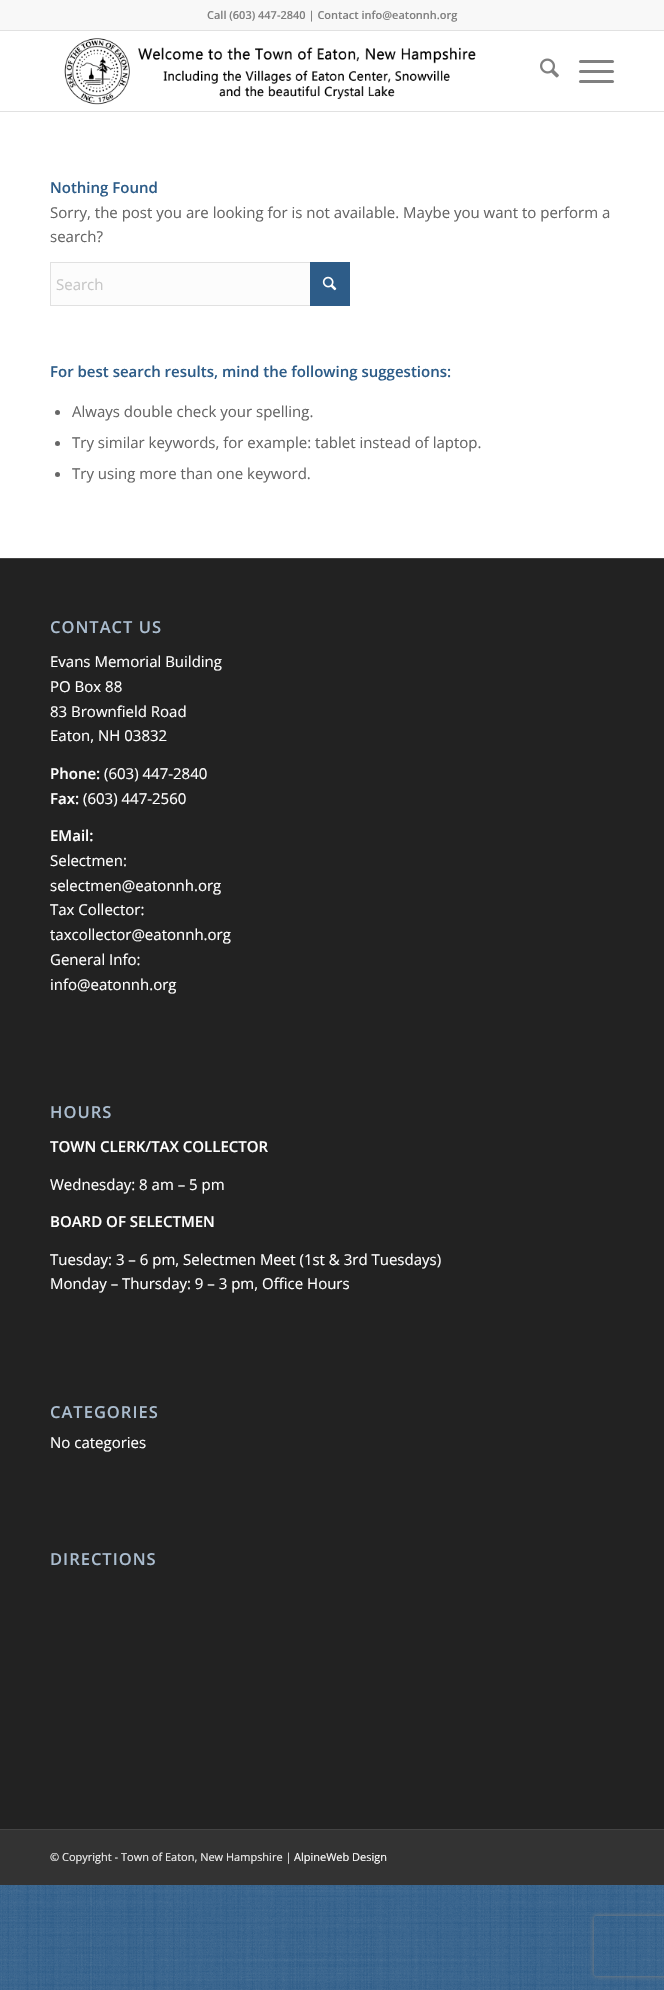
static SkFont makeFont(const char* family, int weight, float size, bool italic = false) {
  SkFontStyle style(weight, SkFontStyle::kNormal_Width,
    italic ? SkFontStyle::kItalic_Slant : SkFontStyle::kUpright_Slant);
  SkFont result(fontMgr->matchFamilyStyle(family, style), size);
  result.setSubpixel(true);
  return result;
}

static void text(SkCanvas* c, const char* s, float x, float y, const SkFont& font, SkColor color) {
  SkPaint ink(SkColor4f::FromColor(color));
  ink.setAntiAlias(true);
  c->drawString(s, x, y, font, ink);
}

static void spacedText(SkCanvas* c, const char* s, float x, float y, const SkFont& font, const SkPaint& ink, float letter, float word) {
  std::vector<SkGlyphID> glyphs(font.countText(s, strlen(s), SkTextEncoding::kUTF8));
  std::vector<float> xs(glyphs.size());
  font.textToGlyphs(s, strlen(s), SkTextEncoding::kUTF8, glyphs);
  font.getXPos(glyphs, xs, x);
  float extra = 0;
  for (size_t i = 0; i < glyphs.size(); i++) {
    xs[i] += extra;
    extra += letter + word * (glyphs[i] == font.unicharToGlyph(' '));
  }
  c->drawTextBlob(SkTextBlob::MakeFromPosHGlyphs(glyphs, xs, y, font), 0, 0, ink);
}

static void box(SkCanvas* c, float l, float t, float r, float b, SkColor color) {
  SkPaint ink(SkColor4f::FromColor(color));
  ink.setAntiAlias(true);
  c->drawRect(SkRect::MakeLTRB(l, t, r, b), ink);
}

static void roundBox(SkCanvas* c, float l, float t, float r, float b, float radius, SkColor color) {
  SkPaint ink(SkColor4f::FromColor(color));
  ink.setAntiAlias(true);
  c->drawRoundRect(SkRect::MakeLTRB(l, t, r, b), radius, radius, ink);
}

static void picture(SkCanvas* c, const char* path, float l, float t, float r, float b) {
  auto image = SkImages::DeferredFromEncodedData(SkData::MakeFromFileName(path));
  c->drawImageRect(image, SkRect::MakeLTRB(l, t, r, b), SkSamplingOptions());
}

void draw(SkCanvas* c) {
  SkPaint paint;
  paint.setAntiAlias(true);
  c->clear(0xff2d5c88);
  picture(c, "img_01.png", 0, 1885, 664, 1990);
  box(c, 0, 0, 664, 30, 0xfff8f8f8);
  box(c, 0, 30, 664, 31, 0xffe1e1e1);
  SkFont face1 = makeFont("Open Sans", 600, 11);
  text(c, "Call (603) 447-2840 | Contact info@eatonnh.org", 207, 19, face1, 0xff808080);
  box(c, 0, 31, 664, 111, 0xffffffff);
  box(c, 0, 111, 664, 112, 0xffe1e1e1);
  picture(c, "img_02.png", 64, 38, 476, 105);
  picture(c, "img_03.png", 540, 58, 559, 78);
  roundBox(c, 579, 70, 614, 73, 1.5f, 0xff808080);
  roundBox(c, 579, 60, 614, 63, 1.5f, 0xff808080);
  roundBox(c, 579, 80, 614, 83, 1.5f, 0xff808080);
  box(c, 0, 112, 664, 558, 0xffffffff);
  SkFont face2 = makeFont("Open Sans", 600, 15);
  text(c, "Nothing Found", 50, 193, face2, 0xff2d5c88);
  SkFont face3 = makeFont("Open Sans", 400, 15);
  text(c, "Sorry, the post you are looking for is not available. Maybe you want to perform a", 50, 218, face3, 0xff666666);
  text(c, "search?", 50, 242, face3, 0xff666666);
  box(c, 51, 263, 310, 305, 0xfffcfcfc);
  paint.setStyle(SkPaint::kStroke_Style);
  paint.setStrokeWidth(1);
  paint.setColor(0xffe1e1e1);
  c->drawRect(SkRect::MakeLTRB(50.5f, 262.5f, 349.5f, 305.5f), paint);
  box(c, 310, 262, 350, 306, 0xff2d5c88);
  text(c, "Search", 56, 290, face3, 0xffc7c7c7);
  picture(c, "img_04.png", 322, 276, 337, 291);
  text(c, "For best search results, mind the following suggestions:", 50, 377, face2, 0xff2d5c88);
  paint.setStyle(SkPaint::kFill_Style);
  paint.setColor(0xff666666);
  c->drawCircle(57.5f, 412.5f, 2.5f, paint);
  text(c, "Always double check your spelling.", 72, 417, face3, 0xff666666);
  c->drawCircle(57.5f, 443.5f, 2.5f, paint);
  text(c, "Try similar keywords, for example: tablet instead of laptop.", 72, 448, face3, 0xff666666);
  c->drawCircle(57.5f, 474.5f, 2.5f, paint);
  text(c, "Try using more than one keyword.", 72, 479, face3, 0xff666666);
  box(c, 0, 559, 664, 1829, 0xff222222);
  box(c, 0, 558, 664, 559, 0xff444444);
  SkFont face4 = makeFont("Open Sans", 600, 16.5f);
  paint.setColor(0xffabbdcf);
  spacedText(c, "CONTACT US", 50, 633, face4, paint, 1, 0);
  text(c, "Evans Memorial Building", 50, 667, face3, 0xffffffff);
  text(c, "PO Box 88", 50, 692, face3, 0xffffffff);
  text(c, "83 Brownfield Road", 50, 717, face3, 0xffffffff);
  text(c, "Eaton, NH 03832", 50, 741, face3, 0xffffffff);
  text(c, "Phone:", 50, 779, face2, 0xffffffff);
  text(c, "(603) 447-2840", 104, 779, face3, 0xffffffff);
  text(c, "Fax:", 50, 804, face2, 0xffffffff);
  text(c, "(603) 447-2560", 83, 804, face3, 0xffffffff);
  text(c, "EMail:", 50, 841, face2, 0xffffffff);
  text(c, "Selectmen:", 50, 866, face3, 0xffffffff);
  text(c, "selectmen@eatonnh.org", 50, 891, face3, 0xffffffff);
  text(c, "Tax Collector:", 50, 915, face3, 0xffffffff);
  text(c, "taxcollector@eatonnh.org", 50, 940, face3, 0xffffffff);
  text(c, "General Info:", 50, 965, face3, 0xffffffff);
  text(c, "info@eatonnh.org", 50, 990, face3, 0xffffffff);
  spacedText(c, "HOURS", 50, 1118, face4, paint, 1, 0);
  text(c, "TOWN CLERK/TAX COLLECTOR", 50, 1152, face2, 0xffffffff);
  text(c, "Wednesday: 8 am – 5 pm", 50, 1190, face3, 0xffffffff);
  text(c, "BOARD OF SELECTMEN", 50, 1227, face2, 0xffffffff);
  text(c, "Tuesday: 3 – 6 pm, Selectmen Meet (1st & 3rd Tuesdays)", 50, 1265, face3, 0xffffffff);
  text(c, "Monday – Thursday: 9 – 3 pm, Office Hours", 50, 1289, face3, 0xffffffff);
  spacedText(c, "CATEGORIES", 50, 1418, face4, paint, 1, 0);
  text(c, "No categories", 50, 1448, face3, 0xffffffff);
  spacedText(c, "DIRECTIONS", 50, 1565, face4, paint, 1, 0);
  box(c, 0, 1830, 664, 1885, 0xff333333);
  box(c, 0, 1829, 664, 1830, 0xff444444);
  SkFont face5 = makeFont("Open Sans", 400, 11);
  text(c, "© Copyright - Town of Eaton, New Hampshire |", 50, 1861, face5, 0xffeeeeee);
  text(c, "AlpineWeb Design", 294, 1861, face5, 0xffffffff);
  c->save();
  c->clipPath(SkPathBuilder(SkPathFillType::kEvenOdd).moveTo(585, 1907).lineTo(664, 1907).lineTo(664, 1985).lineTo(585, 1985).close().moveTo(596, 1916).lineTo(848, 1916).cubicTo(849, 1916, 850, 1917, 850, 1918).lineTo(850, 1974).cubicTo(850, 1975, 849, 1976, 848, 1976).lineTo(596, 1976).cubicTo(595, 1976, 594, 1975, 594, 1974).lineTo(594, 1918).cubicTo(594, 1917, 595, 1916, 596, 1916).close().detach(), true);
  paint.setColor(0xff808080);
  paint.setMaskFilter(SkMaskFilter::MakeBlur(kNormal_SkBlurStyle, 2.5f));
  c->drawRoundRect(SkRect::MakeLTRB(594, 1916, 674, 1976), 2, 2, paint);
  paint.setMaskFilter(nullptr);
  c->restore();
}
